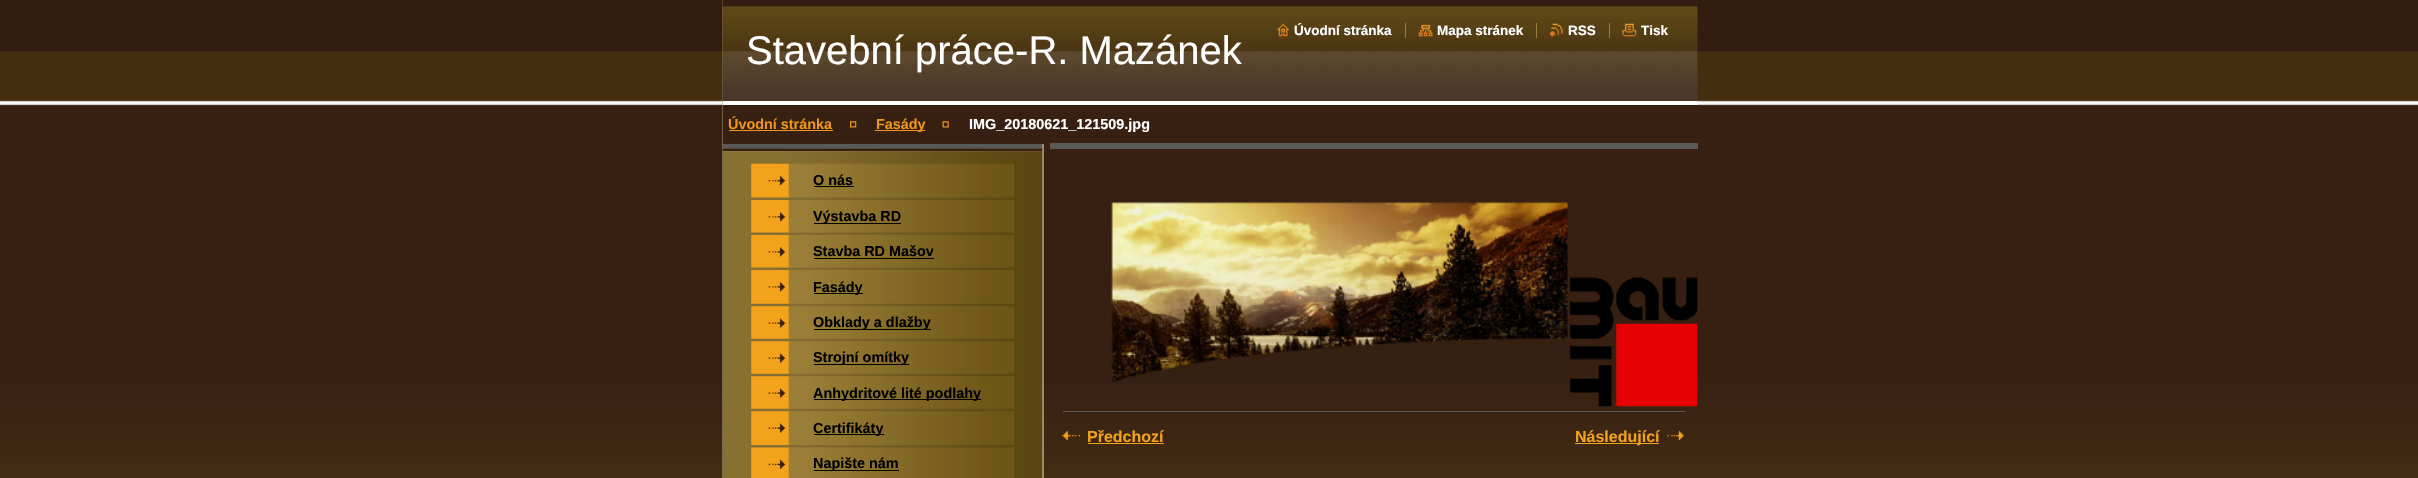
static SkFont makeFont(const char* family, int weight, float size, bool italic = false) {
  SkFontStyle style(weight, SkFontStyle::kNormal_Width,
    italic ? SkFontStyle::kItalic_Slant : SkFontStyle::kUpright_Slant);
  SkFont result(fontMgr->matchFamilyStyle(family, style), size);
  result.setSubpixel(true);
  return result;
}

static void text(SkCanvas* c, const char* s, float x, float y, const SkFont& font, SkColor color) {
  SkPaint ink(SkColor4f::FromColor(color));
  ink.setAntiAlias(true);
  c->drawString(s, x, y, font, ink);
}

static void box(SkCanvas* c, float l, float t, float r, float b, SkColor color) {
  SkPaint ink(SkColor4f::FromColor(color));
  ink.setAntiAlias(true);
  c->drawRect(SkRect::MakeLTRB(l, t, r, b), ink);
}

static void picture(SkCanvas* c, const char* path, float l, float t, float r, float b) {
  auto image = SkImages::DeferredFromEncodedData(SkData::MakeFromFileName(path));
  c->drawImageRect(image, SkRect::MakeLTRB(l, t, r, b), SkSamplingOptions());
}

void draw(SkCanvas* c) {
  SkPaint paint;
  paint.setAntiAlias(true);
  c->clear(0xffffffff);
  picture(c, "img_01.png", 0, 0, 2418, 478);
  picture(c, "img_02.png", 722, 0, 1044, 478);
  picture(c, "img_03.png", 722, 0, 1698, 102);
  box(c, 723, 101, 1698, 105, 0xffffffff);
  picture(c, "img_04.png", 1277, 23, 1289, 37);
  SkFont face1 = makeFont("Liberation Sans", 700, 13.5f);
  text(c, "Úvodní stránka", 1294, 35, face1, 0xffffffff);
  picture(c, "img_05.png", 1418, 24, 1433, 37);
  text(c, "Mapa stránek", 1437, 35, face1, 0xffffffff);
  box(c, 1405, 23, 1406, 38, 0xff9a7e37);
  picture(c, "img_06.png", 1550, 23, 1563, 37);
  text(c, "RSS", 1568, 35, face1, 0xffffffff);
  box(c, 1536, 23, 1537, 38, 0xff9a7e37);
  picture(c, "img_07.png", 1622, 23, 1637, 37);
  text(c, "Tisk", 1641, 35, face1, 0xffffffff);
  box(c, 1609, 23, 1610, 38, 0xff9a7e37);
  SkFont face2 = makeFont("Liberation Sans", 400, 40);
  text(c, "Stavební práce-R. Mazánek", 746, 64, face2, 0xffffffff);
  box(c, 723, 105, 1698, 141, 0xff372012);
  SkFont face3 = makeFont("Liberation Sans", 700, 14.4f);
  text(c, "Úvodní stránka", 728, 129, face3, 0xffed951c);
  box(c, 729, 130, 833, 131, 0xffed951c);
  picture(c, "img_08.png", 850, 121, 857, 128);
  box(c, 875, 130, 925, 131, 0xffed951c);
  text(c, "Fasády", 876, 129, face3, 0xffed951c);
  picture(c, "img_09.png", 942, 121, 949, 128);
  text(c, "IMG_20180621_121509.jpg", 969, 129, face3, 0xffffffff);
  box(c, 723, 141, 1044, 144, 0xff372012);
  picture(c, "img_10.png", 722, 143, 1043, 152);
  picture(c, "img_11.png", 722, 151, 1043, 478);
  picture(c, "img_12.png", 751, 163, 1014, 198);
  picture(c, "img_13.png", 768, 176, 786, 185);
  text(c, "O nás", 813, 185, face3, 0xff000000);
  box(c, 814, 186, 854, 187, 0xff000000);
  picture(c, "img_14.png", 751, 200, 1014, 233);
  picture(c, "img_15.png", 768, 212, 786, 222);
  box(c, 814, 223, 901, 224, 0xff000000);
  text(c, "Výstavba RD", 813, 221, face3, 0xff000000);
  picture(c, "img_16.png", 751, 235, 1014, 268);
  picture(c, "img_15.png", 768, 247, 786, 257);
  text(c, "Stavba RD Mašov", 813, 256, face3, 0xff000000);
  box(c, 814, 258, 934, 259, 0xff000000);
  picture(c, "img_17.png", 751, 270, 1014, 304);
  picture(c, "img_15.png", 768, 282, 786, 292);
  box(c, 814, 293, 863, 294, 0xff000000);
  text(c, "Fasády", 813, 292, face3, 0xff000000);
  picture(c, "img_18.png", 751, 306, 1014, 339);
  picture(c, "img_19.png", 768, 318, 786, 328);
  box(c, 814, 329, 931, 330, 0xff000000);
  text(c, "Obklady a dlažby", 813, 327, face3, 0xff000000);
  picture(c, "img_20.png", 751, 341, 1014, 374);
  picture(c, "img_19.png", 768, 353, 786, 363);
  box(c, 814, 364, 909, 365, 0xff000000);
  text(c, "Strojní omítky", 813, 362, face3, 0xff000000);
  picture(c, "img_21.png", 751, 376, 1014, 409);
  picture(c, "img_19.png", 768, 388, 786, 398);
  box(c, 814, 399, 981, 400, 0xff000000);
  text(c, "Anhydritové lité podlahy", 813, 398, face3, 0xff000000);
  picture(c, "img_22.png", 751, 411, 1014, 445);
  picture(c, "img_19.png", 768, 423, 786, 433);
  box(c, 814, 434, 884, 435, 0xff000000);
  text(c, "Certifikáty", 813, 433, face3, 0xff000000);
  picture(c, "img_23.png", 751, 447, 1014, 478);
  picture(c, "img_24.png", 768, 459, 786, 469);
  box(c, 814, 470, 899, 471, 0xff000000);
  text(c, "Napište nám", 813, 468, face3, 0xff000000);
  box(c, 1050, 143, 1698, 149, 0xff5b5858);
  picture(c, "img_25.png", 1111, 202, 1698, 407);
  box(c, 1063, 411, 1685, 412, 0xff5a5859);
  picture(c, "img_26.png", 1062, 431, 1080, 440);
  SkFont face4 = makeFont("Liberation Sans", 700, 16);
  text(c, "Předchozí", 1087, 442, face4, 0xfff3a21c);
  box(c, 1088, 443, 1164, 444, 0xfff3a21c);
  picture(c, "img_27.png", 1667, 431, 1684, 440);
  box(c, 1575, 443, 1659, 444, 0xfff3a21c);
  text(c, "Následující", 1575, 442, face4, 0xfff3a21c);
}
